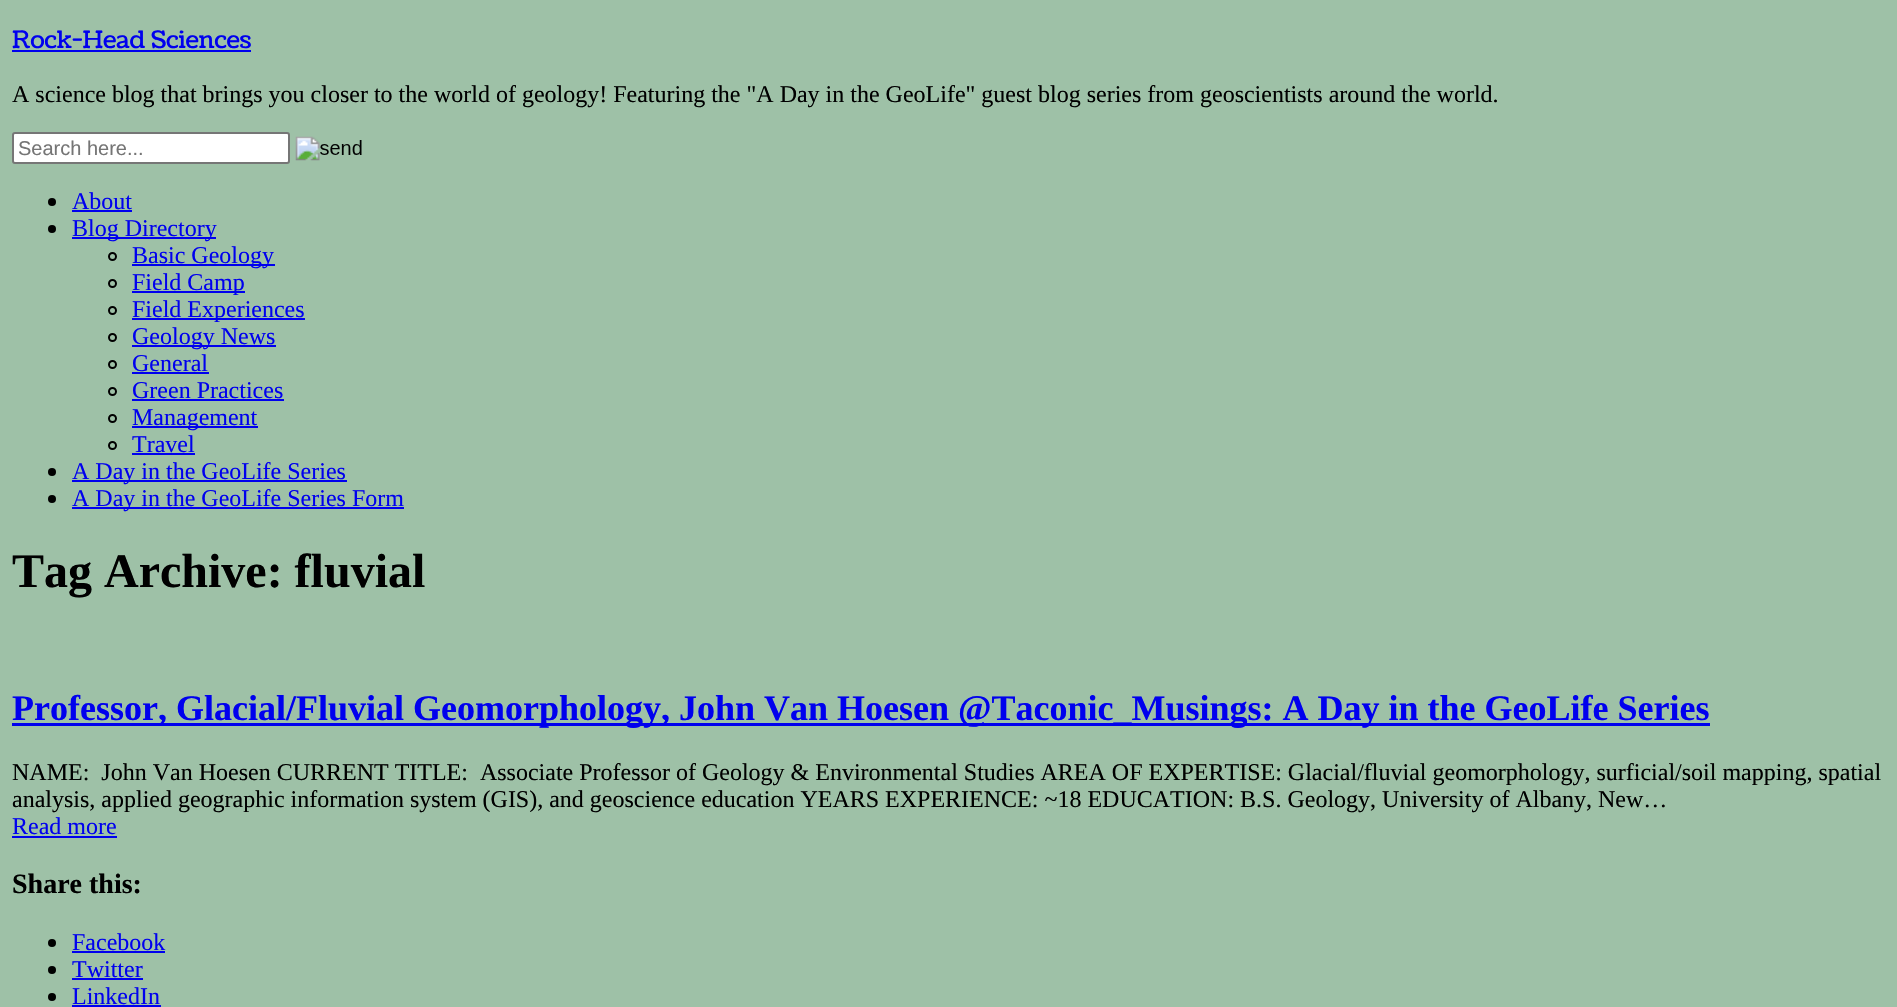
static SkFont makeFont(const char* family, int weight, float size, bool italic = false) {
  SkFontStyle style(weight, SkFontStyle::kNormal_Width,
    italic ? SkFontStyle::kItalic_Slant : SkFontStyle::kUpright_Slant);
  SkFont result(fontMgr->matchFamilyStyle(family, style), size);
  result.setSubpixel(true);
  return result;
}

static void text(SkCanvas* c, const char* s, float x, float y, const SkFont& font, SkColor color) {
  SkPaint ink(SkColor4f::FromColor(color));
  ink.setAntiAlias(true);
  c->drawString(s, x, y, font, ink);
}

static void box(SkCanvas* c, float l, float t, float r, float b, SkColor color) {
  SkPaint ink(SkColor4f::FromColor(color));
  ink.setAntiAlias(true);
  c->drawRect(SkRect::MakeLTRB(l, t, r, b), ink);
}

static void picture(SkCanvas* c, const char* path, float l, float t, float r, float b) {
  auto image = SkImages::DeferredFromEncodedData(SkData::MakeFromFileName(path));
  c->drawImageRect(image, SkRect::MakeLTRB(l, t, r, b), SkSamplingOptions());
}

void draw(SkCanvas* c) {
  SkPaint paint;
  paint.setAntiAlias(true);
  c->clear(0xff9ec1a7);
  SkFont face1 = makeFont("Coustard", 400, 24);
  text(c, "Rock-Head Sciences", 12, 48, face1, 0xff0000ee);
  box(c, 12, 50, 251, 52, 0xff0000ee);
  SkFont face2 = makeFont("Liberation Serif", 400, 24);
  text(c, "A science blog that brings you closer to the world of geology! Featuring the \"A Day in the GeoLife\" guest blog series from geoscientists around the world.", 12, 102, face2, 0xff000000);
  paint.setColor(0xffffffff);
  c->drawRoundRect(SkRect::MakeLTRB(13, 133, 289, 163), 2, 2, paint);
  paint.setStyle(SkPaint::kStroke_Style);
  paint.setStrokeWidth(2);
  paint.setColor(0xff767676);
  c->drawRoundRect(SkRect::MakeLTRB(13, 133, 289, 163), 2, 2, paint);
  SkFont face3 = makeFont("Liberation Sans", 400, 20);
  text(c, "Search here...", 18, 155, face3, 0xff757575);
  picture(c, "img_01.png", 295, 136, 362, 161);
  paint.setStyle(SkPaint::kFill_Style);
  paint.setColor(0xff000000);
  c->drawCircle(52, 202, 4, paint);
  text(c, "About", 72, 209, face2, 0xff0000ee);
  box(c, 72, 210, 132, 212, 0xff0000ee);
  c->drawCircle(52, 229, 4, paint);
  box(c, 72, 237, 216, 239, 0xff0000ee);
  text(c, "Blog Directory", 72, 236, face2, 0xff0000ee);
  paint.setStyle(SkPaint::kStroke_Style);
  c->drawCircle(112.5f, 256.5f, 3.5f, paint);
  box(c, 132, 264, 275, 266, 0xff0000ee);
  text(c, "Basic Geology", 132, 263, face2, 0xff0000ee);
  c->drawCircle(112.5f, 283.5f, 3.5f, paint);
  box(c, 132, 291, 245, 293, 0xff0000ee);
  text(c, "Field Camp", 132, 290, face2, 0xff0000ee);
  c->drawCircle(112.5f, 310.5f, 3.5f, paint);
  box(c, 132, 318, 305, 320, 0xff0000ee);
  text(c, "Field Experiences", 132, 317, face2, 0xff0000ee);
  c->drawCircle(112.5f, 337.5f, 3.5f, paint);
  box(c, 132, 345, 276, 347, 0xff0000ee);
  text(c, "Geology News", 132, 344, face2, 0xff0000ee);
  c->drawCircle(112.5f, 364.5f, 3.5f, paint);
  text(c, "General", 132, 371, face2, 0xff0000ee);
  box(c, 132, 372, 209, 374, 0xff0000ee);
  c->drawCircle(112.5f, 391.5f, 3.5f, paint);
  text(c, "Green Practices", 132, 398, face2, 0xff0000ee);
  box(c, 132, 399, 284, 401, 0xff0000ee);
  c->drawCircle(112.5f, 418.5f, 3.5f, paint);
  box(c, 132, 426, 258, 428, 0xff0000ee);
  text(c, "Management", 132, 425, face2, 0xff0000ee);
  c->drawCircle(112.5f, 445.5f, 3.5f, paint);
  text(c, "Travel", 132, 452, face2, 0xff0000ee);
  box(c, 132, 453, 195, 455, 0xff0000ee);
  paint.setStyle(SkPaint::kFill_Style);
  c->drawCircle(52, 472, 4, paint);
  box(c, 72, 480, 347, 482, 0xff0000ee);
  text(c, "A Day in the GeoLife Series", 72, 479, face2, 0xff0000ee);
  c->drawCircle(52, 499, 4, paint);
  box(c, 72, 507, 404, 509, 0xff0000ee);
  text(c, "A Day in the GeoLife Series Form", 72, 506, face2, 0xff0000ee);
  SkFont face4 = makeFont("Liberation Serif", 700, 48);
  text(c, "Tag Archive: fluvial", 12, 587, face4, 0xff000000);
  box(c, 12, 723, 1710, 726, 0xff0000ee);
  SkFont face5 = makeFont("Liberation Serif", 700, 36);
  text(c, "Professor, Glacial/Fluvial Geomorphology, John Van Hoesen @Taconic_Musings: A Day in the GeoLife Series", 12, 720, face5, 0xff0000ee);
  text(c, "NAME:  John Van Hoesen CURRENT TITLE:  Associate Professor of Geology & Environmental Studies AREA OF EXPERTISE: Glacial/fluvial geomorphology, surficial/soil mapping, spatial", 12, 780, face2, 0xff000000);
  text(c, "analysis, applied geographic information system (GIS), and geoscience education YEARS EXPERIENCE: ~18 EDUCATION: B.S. Geology, University of Albany, New…", 12, 807, face2, 0xff000000);
  text(c, "Read more", 12, 834, face2, 0xff0000ee);
  box(c, 12, 836, 117, 838, 0xff0000ee);
  SkFont face6 = makeFont("Liberation Serif", 700, 28);
  text(c, "Share this:", 12, 893, face6, 0xff000000);
  c->drawCircle(52, 943, 4, paint);
  text(c, "Facebook", 72, 950, face2, 0xff0000ee);
  box(c, 72, 951, 165, 953, 0xff0000ee);
  c->drawCircle(52, 970, 4, paint);
  text(c, "Twitter", 72, 977, face2, 0xff0000ee);
  box(c, 72, 978, 143, 980, 0xff0000ee);
  c->drawCircle(52, 997, 4, paint);
  text(c, "LinkedIn", 72, 1004, face2, 0xff0000ee);
  box(c, 72, 1005, 161, 1007, 0xff0000ee);
}
